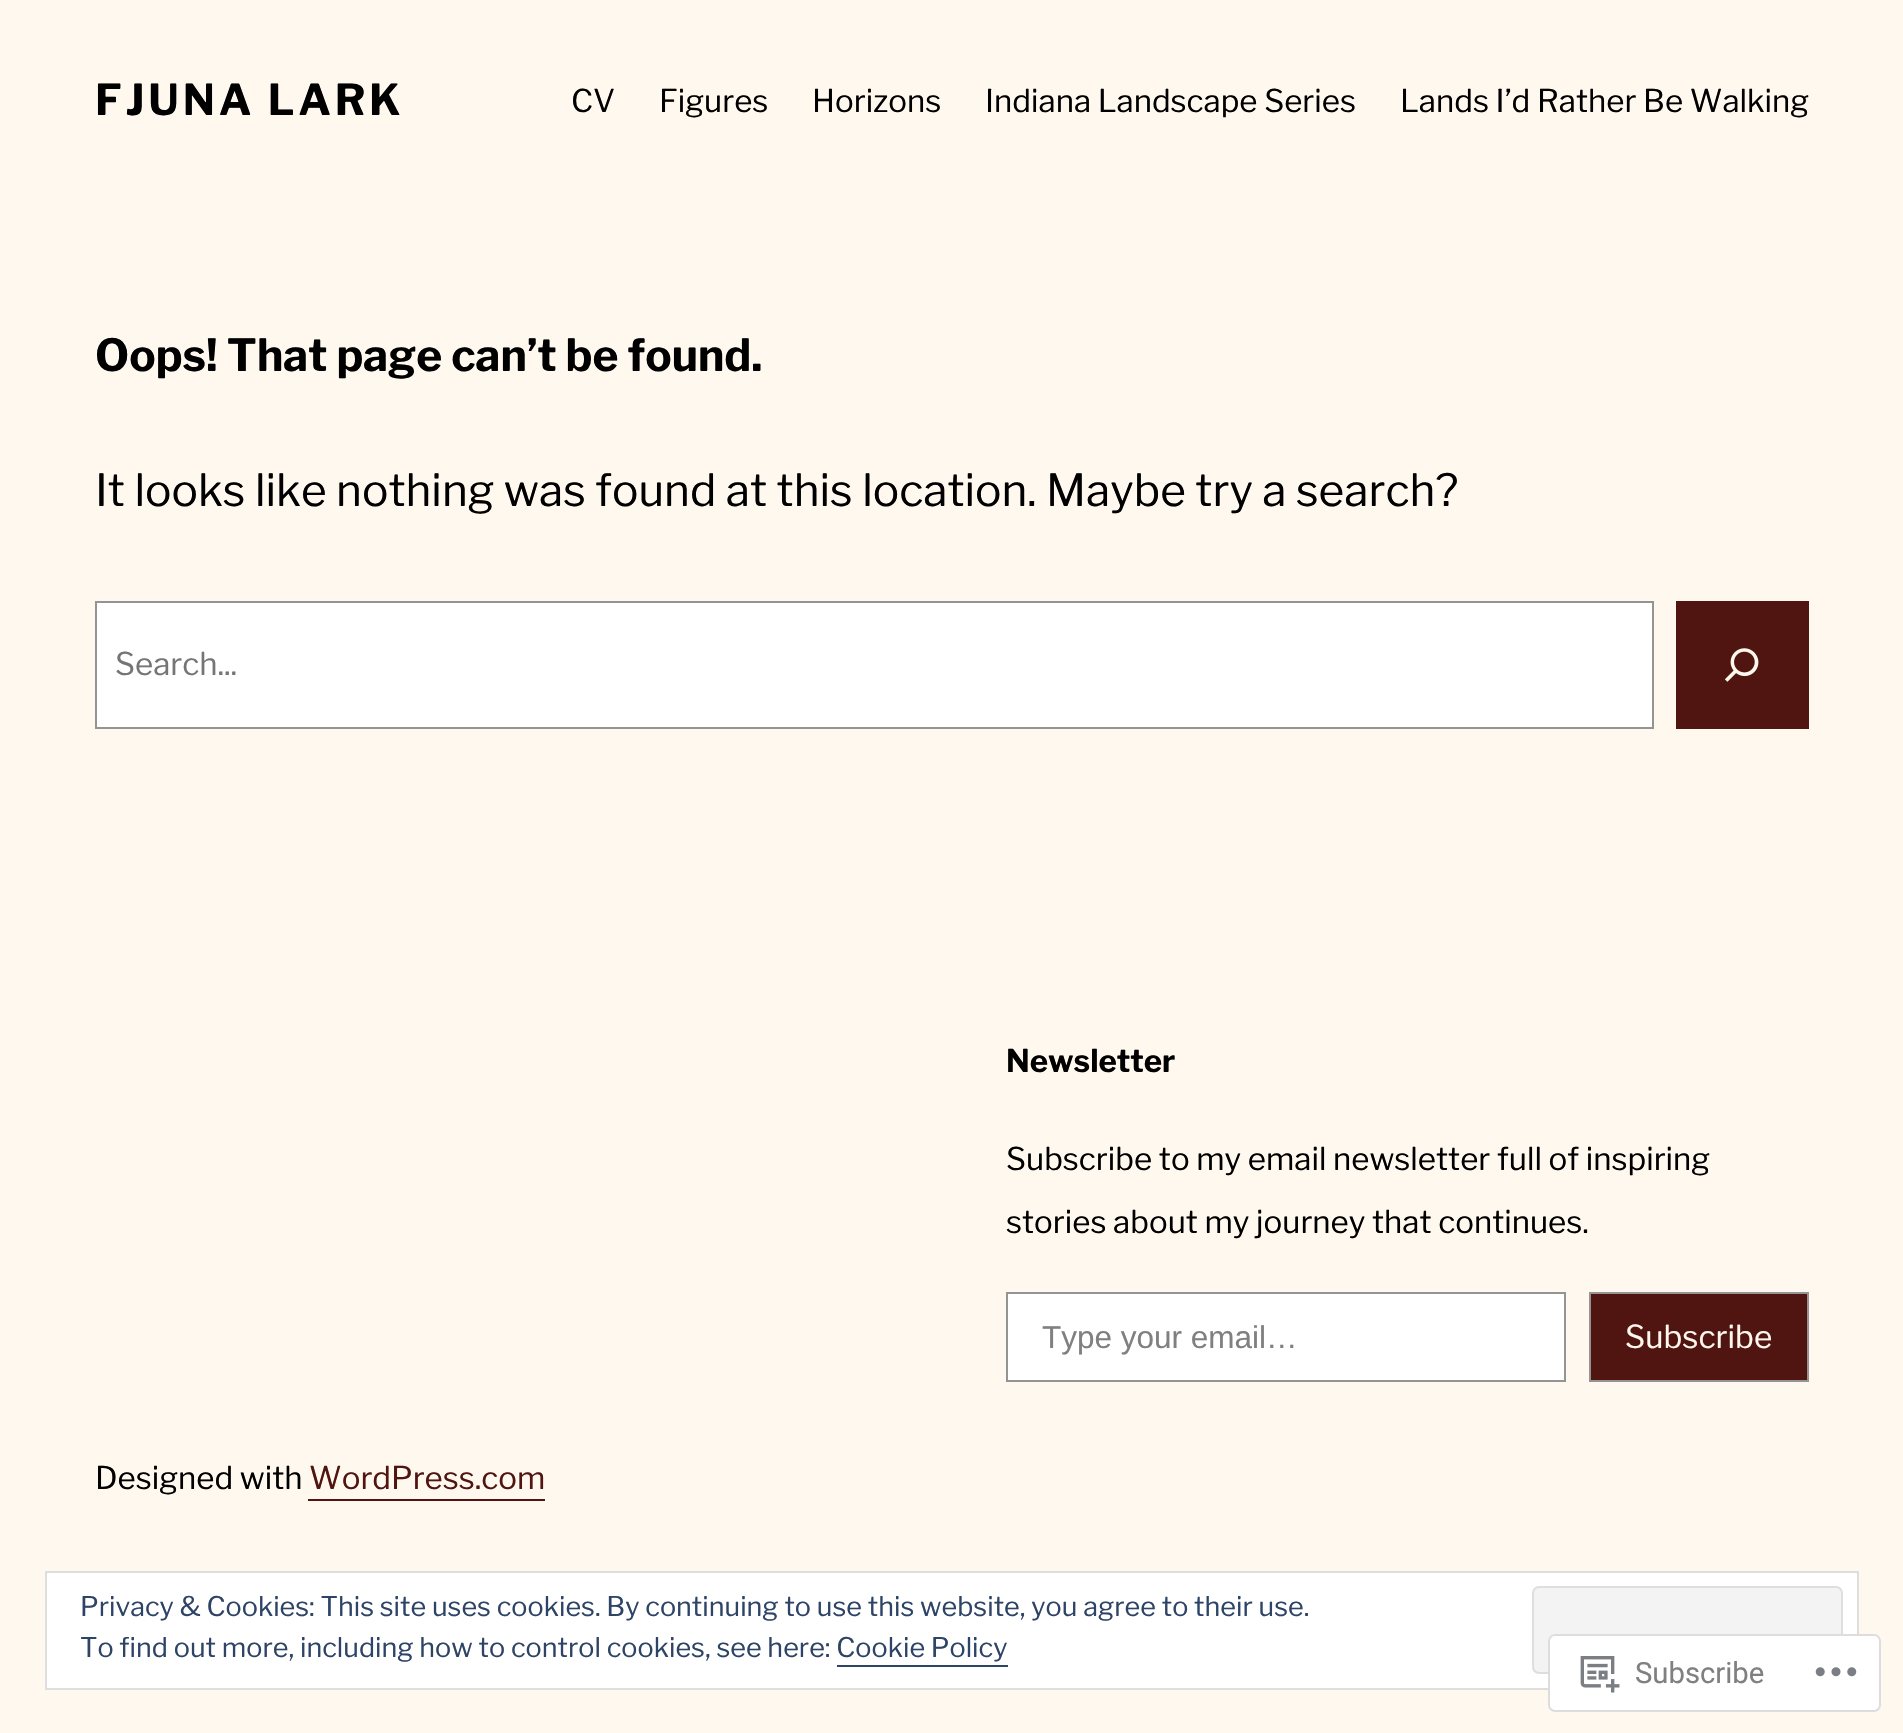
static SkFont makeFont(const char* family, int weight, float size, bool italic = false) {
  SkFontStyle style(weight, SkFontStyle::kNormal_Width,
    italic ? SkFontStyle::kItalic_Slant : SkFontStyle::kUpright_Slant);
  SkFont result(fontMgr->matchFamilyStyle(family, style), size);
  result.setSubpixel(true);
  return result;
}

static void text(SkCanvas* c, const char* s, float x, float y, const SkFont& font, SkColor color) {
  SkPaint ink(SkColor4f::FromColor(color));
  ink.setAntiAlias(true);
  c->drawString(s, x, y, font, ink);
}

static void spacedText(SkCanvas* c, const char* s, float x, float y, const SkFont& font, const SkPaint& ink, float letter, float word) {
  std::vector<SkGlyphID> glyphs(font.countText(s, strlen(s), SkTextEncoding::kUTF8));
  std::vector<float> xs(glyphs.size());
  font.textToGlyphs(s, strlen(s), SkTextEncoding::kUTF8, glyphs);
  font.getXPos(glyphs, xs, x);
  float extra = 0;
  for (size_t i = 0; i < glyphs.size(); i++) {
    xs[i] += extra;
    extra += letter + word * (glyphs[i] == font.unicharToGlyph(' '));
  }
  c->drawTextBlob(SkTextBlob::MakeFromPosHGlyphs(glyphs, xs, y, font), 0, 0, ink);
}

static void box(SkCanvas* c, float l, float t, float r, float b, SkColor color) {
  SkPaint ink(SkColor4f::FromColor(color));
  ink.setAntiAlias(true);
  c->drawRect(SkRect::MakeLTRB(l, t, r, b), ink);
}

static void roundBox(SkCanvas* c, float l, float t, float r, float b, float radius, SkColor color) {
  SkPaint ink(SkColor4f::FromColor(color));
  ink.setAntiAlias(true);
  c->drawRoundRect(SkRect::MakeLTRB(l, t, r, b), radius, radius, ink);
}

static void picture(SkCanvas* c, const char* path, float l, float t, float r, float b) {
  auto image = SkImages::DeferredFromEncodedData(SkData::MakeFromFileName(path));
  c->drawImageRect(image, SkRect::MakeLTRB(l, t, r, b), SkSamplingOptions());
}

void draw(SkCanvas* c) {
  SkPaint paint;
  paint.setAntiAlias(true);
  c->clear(0xfffff8ee);
  SkFont face1 = makeFont("Libre Franklin", 700, 42.5f);
  paint.setColor(0xff000000);
  spacedText(c, "FJUNA LARK", 95, 115, face1, paint, 3.75f, 0);
  SkFont face2 = makeFont("Libre Franklin", 400, 31.25f);
  text(c, "CV", 571, 112, face2, 0xff000000);
  text(c, "Figures", 659, 112, face2, 0xff000000);
  text(c, "Horizons", 812, 112, face2, 0xff000000);
  text(c, "Indiana Landscape Series", 985, 112, face2, 0xff000000);
  text(c, "Lands I’d Rather Be Walking", 1400, 112, face2, 0xff000000);
  SkFont face3 = makeFont("Libre Franklin", 700, 44.2f);
  text(c, "Oops! That page can’t be found.", 95, 371, face3, 0xff000000);
  SkFont face4 = makeFont("Libre Franklin", 400, 44.2f);
  text(c, "It looks like nothing was found at this location. Maybe try a search?", 95, 506, face4, 0xff000000);
  paint.setColor(0xffffffff);
  c->drawRect(SkRect::MakeLTRB(96, 602, 1653, 728), paint);
  paint.setStyle(SkPaint::kStroke_Style);
  paint.setStrokeWidth(2);
  paint.setColor(0xff949494);
  c->drawRect(SkRect::MakeLTRB(96, 602, 1653, 728), paint);
  text(c, "Search...", 115, 675, face2, 0xff757575);
  box(c, 1676, 601, 1809, 729, 0xff501511);
  picture(c, "img_01.png", 1724, 648, 1759, 682);
  SkFont face5 = makeFont("Libre Franklin", 700, 31.25f);
  text(c, "Newsletter", 1006, 1072, face5, 0xff000000);
  text(c, "Subscribe to my email newsletter full of inspiring", 1006, 1170, face2, 0xff000000);
  text(c, "stories about my journey that continues.", 1006, 1233, face2, 0xff000000);
  paint.setStyle(SkPaint::kFill_Style);
  paint.setColor(0xffffffff);
  c->drawRect(SkRect::MakeLTRB(1007, 1293, 1565, 1381), paint);
  paint.setStyle(SkPaint::kStroke_Style);
  paint.setColor(0xff949494);
  c->drawRect(SkRect::MakeLTRB(1007, 1293, 1565, 1381), paint);
  SkFont face6 = makeFont("Liberation Sans", 400, 31.5f);
  text(c, "Type your email…", 1042, 1348, face6, 0xff808080);
  paint.setStyle(SkPaint::kFill_Style);
  paint.setColor(0xff501511);
  c->drawRect(SkRect::MakeLTRB(1590, 1293, 1808, 1381), paint);
  paint.setStyle(SkPaint::kStroke_Style);
  paint.setColor(0xff949494);
  c->drawRect(SkRect::MakeLTRB(1590, 1293, 1808, 1381), paint);
  SkFont face7 = makeFont("Libre Franklin", 400, 31.5f);
  text(c, "Subscribe", 1625, 1348, face7, 0xfffff8ee);
  text(c, "Designed with", 95, 1489, face2, 0xff000000);
  text(c, "WordPress.com", 309, 1489, face2, 0xff501511);
  box(c, 308, 1499, 545, 1501, 0xff501511);
  paint.setStyle(SkPaint::kFill_Style);
  paint.setColor(0xffffffff);
  c->drawRect(SkRect::MakeLTRB(46, 1572, 1858, 1689), paint);
  paint.setStyle(SkPaint::kStroke_Style);
  paint.setColor(0xffdedede);
  c->drawRect(SkRect::MakeLTRB(46, 1572, 1858, 1689), paint);
  SkFont face8 = makeFont("Libre Franklin", 400, 27);
  text(c, "Privacy & Cookies: This site uses cookies. By continuing to use this website, you agree to their use.", 80, 1616, face8, 0xff2e4467);
  paint.setStyle(SkPaint::kFill_Style);
  paint.setColor(0xfff3f3f3);
  c->drawRoundRect(SkRect::MakeLTRB(1533, 1587, 1842, 1673), 6, 6, paint);
  paint.setStyle(SkPaint::kStroke_Style);
  paint.setColor(0xffdedede);
  c->drawRoundRect(SkRect::MakeLTRB(1533, 1587, 1842, 1673), 6, 6, paint);
  text(c, "To find out more, including how to control cookies, see here: Cookie Policy", 80, 1657, face8, 0xff2e4467);
  box(c, 837, 1665, 1008, 1667, 0xff2e4467);
  roundBox(c, 1548, 1634, 1881, 1712, 7, 0xfaffffff);
  paint.setColor(0xfadcdcde);
  c->drawRoundRect(SkRect::MakeLTRB(1549, 1635, 1880, 1711), 6, 6, paint);
  picture(c, "img_02.png", 1580, 1656, 1620, 1693);
  SkFont face9 = makeFont("Roboto", 400, 29.25f);
  text(c, "Subscribe", 1635, 1683, face9, 0xff808080);
  picture(c, "img_03.png", 1815, 1667, 1857, 1677);
}
